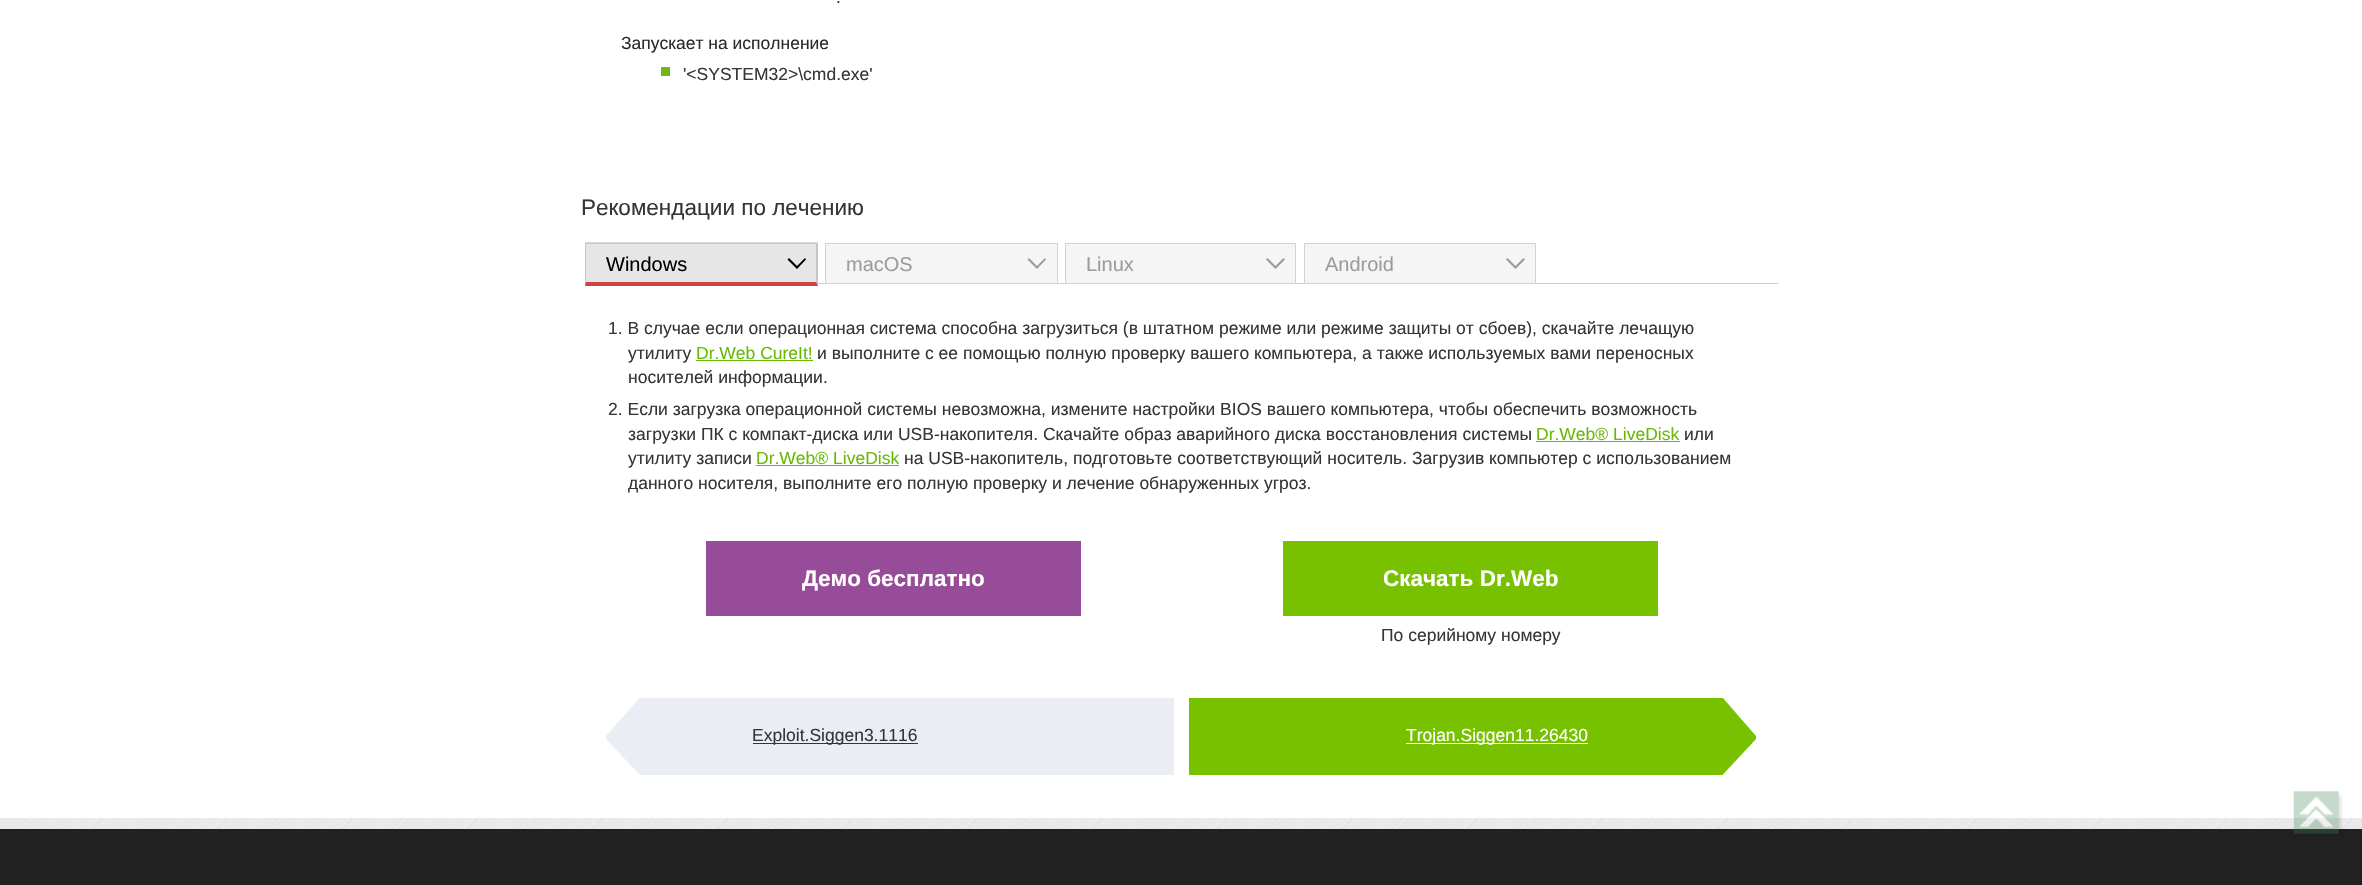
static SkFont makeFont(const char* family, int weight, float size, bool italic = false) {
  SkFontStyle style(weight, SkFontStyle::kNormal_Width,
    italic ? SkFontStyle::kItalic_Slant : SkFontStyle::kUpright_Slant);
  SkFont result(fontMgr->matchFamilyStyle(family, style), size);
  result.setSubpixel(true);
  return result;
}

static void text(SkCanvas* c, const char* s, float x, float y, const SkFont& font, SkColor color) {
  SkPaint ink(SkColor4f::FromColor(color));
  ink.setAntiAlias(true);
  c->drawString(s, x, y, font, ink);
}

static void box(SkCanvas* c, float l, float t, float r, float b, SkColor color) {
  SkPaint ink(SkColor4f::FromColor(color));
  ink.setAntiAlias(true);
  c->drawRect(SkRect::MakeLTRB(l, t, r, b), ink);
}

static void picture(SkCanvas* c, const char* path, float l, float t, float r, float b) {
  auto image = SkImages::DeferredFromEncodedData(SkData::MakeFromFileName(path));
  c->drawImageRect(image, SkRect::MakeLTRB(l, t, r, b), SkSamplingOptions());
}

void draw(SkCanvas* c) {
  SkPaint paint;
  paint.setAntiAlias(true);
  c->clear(0xffe9e9e9);
  picture(c, "img_01.png", 20, 818, 2361, 829);
  box(c, 0, 0, 2362, 818, 0xffffffff);
  SkFont face1 = makeFont("Liberation Sans", 400, 17.5f);
  text(c, ".", 836, 3, face1, 0xff353535);
  text(c, "Запускает на исполнение", 621, 49, face1, 0xff2a2a2a);
  box(c, 661, 67, 670, 76, 0xff73b419);
  text(c, "'<SYSTEM32>\\cmd.exe'", 683, 80, face1, 0xff353535);
  SkFont face2 = makeFont("Liberation Sans", 400, 22.5f);
  text(c, "Рекомендации по лечению", 581, 215, face2, 0xff353535);
  box(c, 585, 243, 818, 286, 0xffe6e6e6);
  paint.setColor(0x24000000);
  c->drawPath(SkPathBuilder().moveTo(585, 242).lineTo(818, 242).lineTo(816, 244).lineTo(586, 244).close().detach(), paint);
  c->drawPath(SkPathBuilder().moveTo(818, 242).lineTo(818, 286).lineTo(816, 282).lineTo(816, 244).close().detach(), paint);
  paint.setColor(0xffca4444);
  c->drawPath(SkPathBuilder().moveTo(818, 286).lineTo(585, 286).lineTo(586, 282).lineTo(816, 282).close().detach(), paint);
  paint.setColor(0x24000000);
  c->drawPath(SkPathBuilder().moveTo(585, 286).lineTo(585, 242).lineTo(586, 244).lineTo(586, 282).close().detach(), paint);
  SkFont face3 = makeFont("Liberation Sans", 400, 20);
  text(c, "Windows", 606, 271, face3, 0xff000000);
  paint.setColor(0xff000000);
  c->drawPath(SkPathBuilder().moveTo(787.5f, 259.5f).lineTo(789, 258).lineTo(797, 266).lineTo(805, 258).lineTo(806, 259.5f).lineTo(797, 269).close().detach(), paint);
  paint.setColor(0xfff5f5f5);
  c->drawRect(SkRect::MakeLTRB(825.5f, 243.5f, 1057.5f, 283.5f), paint);
  paint.setStyle(SkPaint::kStroke_Style);
  paint.setStrokeWidth(1);
  paint.setColor(0xffd3d3d3);
  c->drawRect(SkRect::MakeLTRB(825.5f, 243.5f, 1057.5f, 283.5f), paint);
  text(c, "macOS", 846, 271, face3, 0xff9c9c9c);
  paint.setStyle(SkPaint::kFill_Style);
  paint.setColor(0xff9c9c9c);
  c->drawPath(SkPathBuilder().moveTo(1027.5f, 259.5f).lineTo(1029, 258).lineTo(1037, 266).lineTo(1045, 258).lineTo(1046, 259.5f).lineTo(1037, 269).close().detach(), paint);
  paint.setColor(0xfff5f5f5);
  c->drawRect(SkRect::MakeLTRB(1065.5f, 243.5f, 1295.5f, 283.5f), paint);
  paint.setStyle(SkPaint::kStroke_Style);
  paint.setColor(0xffd3d3d3);
  c->drawRect(SkRect::MakeLTRB(1065.5f, 243.5f, 1295.5f, 283.5f), paint);
  text(c, "Linux", 1086, 271, face3, 0xff9c9c9c);
  paint.setStyle(SkPaint::kFill_Style);
  paint.setColor(0xff9c9c9c);
  c->drawPath(SkPathBuilder().moveTo(1266, 259.5f).lineTo(1267.5f, 258).lineTo(1275.5f, 266).lineTo(1283.5f, 258).lineTo(1285, 259.5f).lineTo(1275.5f, 269).close().detach(), paint);
  paint.setColor(0xfff5f5f5);
  c->drawRect(SkRect::MakeLTRB(1304.5f, 243.5f, 1535.5f, 283.5f), paint);
  paint.setStyle(SkPaint::kStroke_Style);
  paint.setColor(0xffd3d3d3);
  c->drawRect(SkRect::MakeLTRB(1304.5f, 243.5f, 1535.5f, 283.5f), paint);
  text(c, "Android", 1325, 271, face3, 0xff9c9c9c);
  paint.setStyle(SkPaint::kFill_Style);
  paint.setColor(0xff9c9c9c);
  c->drawPath(SkPathBuilder().moveTo(1506, 259.5f).lineTo(1507.5f, 258).lineTo(1515.5f, 266).lineTo(1523.5f, 258).lineTo(1525, 259.5f).lineTo(1515.5f, 269).close().detach(), paint);
  box(c, 818, 283, 1778, 284, 0xffd0d0d0);
  text(c, "1. В случае если операционная система способна загрузиться (в штатном режиме или режиме защиты от сбоев), скачайте лечащую", 608, 334, face1, 0xff353535);
  text(c, "утилиту", 628, 359, face1, 0xff353535);
  text(c, "Dr.Web CureIt!", 696, 359, face1, 0xff68b905);
  box(c, 696, 360, 813, 361, 0xff68b905);
  text(c, "и выполните с ее помощью полную проверку вашего компьютера, а также используемых вами переносных", 817, 359, face1, 0xff353535);
  text(c, "носителей информации.", 628, 383, face1, 0xff353535);
  text(c, "2. Если загрузка операционной системы невозможна, измените настройки BIOS вашего компьютера, чтобы обеспечить возможность", 608, 415, face1, 0xff353535);
  text(c, "загрузки ПК с компакт-диска или USB-накопителя. Скачайте образ аварийного диска восстановления системы", 628, 440, face1, 0xff353535);
  text(c, "Dr.Web® LiveDisk", 1536, 440, face1, 0xff68b905);
  box(c, 1536, 441, 1680, 442, 0xff68b905);
  text(c, "или", 1684, 440, face1, 0xff353535);
  text(c, "утилиту записи", 628, 464, face1, 0xff353535);
  text(c, "Dr.Web® LiveDisk", 756, 464, face1, 0xff68b905);
  box(c, 756, 465, 899, 466, 0xff68b905);
  text(c, "на USB-накопитель, подготовьте соответствующий носитель. Загрузив компьютер с использованием", 904, 464, face1, 0xff353535);
  text(c, "данного носителя, выполните его полную проверку и лечение обнаруженных угроз.", 628, 489, face1, 0xff353535);
  box(c, 706, 541, 1081, 616, 0xff964c98);
  SkFont face4 = makeFont("Liberation Sans", 700, 22.5f);
  text(c, "Демо бесплатно", 802, 586, face4, 0xffffffff);
  box(c, 1283, 541, 1658, 616, 0xff78c100);
  text(c, "Скачать Dr.Web", 1383, 586, face4, 0xffffffff);
  text(c, "По серийному номеру", 1381, 641, face1, 0xff353535);
  box(c, 606, 698, 1174, 775, 0xffeaedf3);
  c->save();
  c->clipRect(SkRect::MakeLTRB(606, 698, 1174, 775));
  paint.setColor(0xffffffff);
  c->drawPath(SkPathBuilder().moveTo(606, 697.5f).lineTo(640, 697.5f).lineTo(606, 736).close().detach(), paint);
  c->restore();
  box(c, 753, 743, 918, 744, 0xff353535);
  text(c, "Exploit.Siggen3.1116", 752, 741, face1, 0xff353535);
  c->drawPath(SkPathBuilder().moveTo(606, 775).lineTo(606, 739).lineTo(640, 775).close().detach(), paint);
  box(c, 1189, 698, 1756, 775, 0xff78c100);
  box(c, 1406, 743, 1588, 744, 0xffffffff);
  text(c, "Trojan.Siggen11.26430", 1406, 741, face1, 0xffffffff);
  c->save();
  c->clipRect(SkRect::MakeLTRB(1189, 698, 1756, 775));
  c->drawPath(SkPathBuilder().moveTo(1756, 697.5f).lineTo(1756, 736).lineTo(1722.5f, 697.5f).close().detach(), paint);
  c->restore();
  c->drawPath(SkPathBuilder().moveTo(1756, 775).lineTo(1722.5f, 775).lineTo(1756, 739).close().detach(), paint);
  box(c, 0, 829, 2362, 885, 0xff212121);
  picture(c, "img_02.png", 2293, 791, 2343, 834);
}
